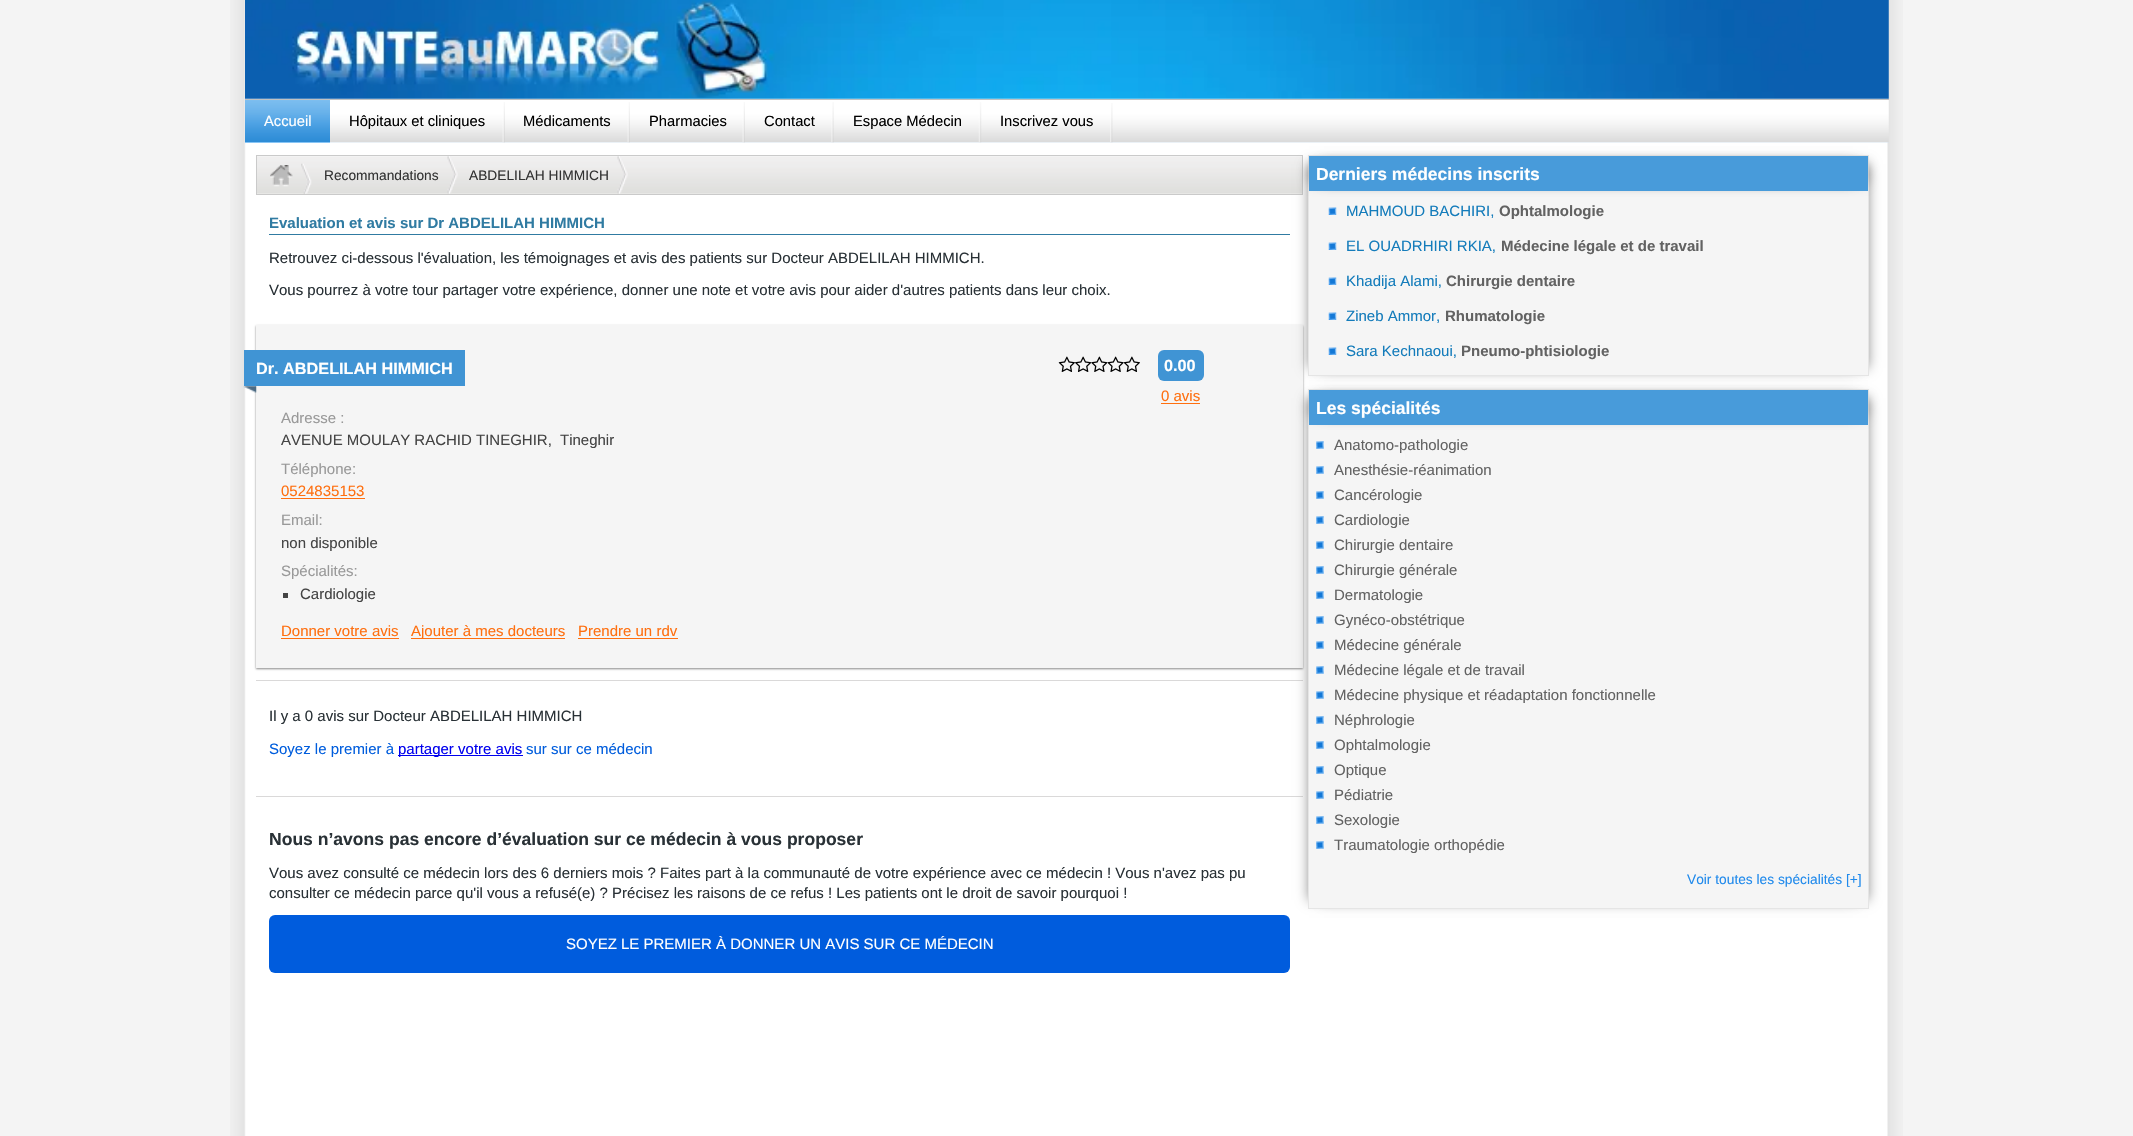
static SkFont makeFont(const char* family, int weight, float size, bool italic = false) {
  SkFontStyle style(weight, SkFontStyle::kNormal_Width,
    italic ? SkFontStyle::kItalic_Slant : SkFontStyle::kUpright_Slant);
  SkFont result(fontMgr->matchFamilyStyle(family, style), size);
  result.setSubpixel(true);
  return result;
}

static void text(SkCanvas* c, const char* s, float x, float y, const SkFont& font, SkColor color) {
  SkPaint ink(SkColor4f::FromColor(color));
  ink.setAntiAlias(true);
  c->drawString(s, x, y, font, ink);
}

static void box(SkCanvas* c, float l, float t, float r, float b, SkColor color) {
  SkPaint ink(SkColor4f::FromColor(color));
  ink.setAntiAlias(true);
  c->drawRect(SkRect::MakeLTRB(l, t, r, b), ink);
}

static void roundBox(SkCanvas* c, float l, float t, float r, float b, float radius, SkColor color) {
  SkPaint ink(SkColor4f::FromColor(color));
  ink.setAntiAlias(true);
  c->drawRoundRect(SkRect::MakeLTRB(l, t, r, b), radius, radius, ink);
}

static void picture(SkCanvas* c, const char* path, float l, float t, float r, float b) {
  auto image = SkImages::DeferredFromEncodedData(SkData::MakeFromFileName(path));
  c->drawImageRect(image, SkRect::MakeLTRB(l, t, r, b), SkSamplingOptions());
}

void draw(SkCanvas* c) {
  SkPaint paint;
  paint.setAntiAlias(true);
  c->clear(0xfff4f4f4);
  picture(c, "img_01.png", 230, 0, 1903, 1136);
  picture(c, "img_02.png", 245, 0, 1889, 99);
  picture(c, "img_03.png", 330, 100, 1889, 143);
  box(c, 245, 99, 1889, 100, 0xffc1c1c1);
  box(c, 245, 142, 330, 143, 0xffa7d9ff);
  picture(c, "img_04.png", 245, 100, 330, 143);
  SkFont face1 = makeFont("Liberation Sans", 400, 14.75f);
  text(c, "Accueil", 264, 126, face1, 0xffffffff);
  picture(c, "img_05.png", 502, 102, 505, 143);
  text(c, "Hôpitaux et cliniques", 349, 126, face1, 0xff000000);
  picture(c, "img_05.png", 627, 102, 630, 143);
  text(c, "Médicaments", 523, 126, face1, 0xff000000);
  picture(c, "img_05.png", 742, 102, 745, 143);
  text(c, "Pharmacies", 649, 126, face1, 0xff000000);
  picture(c, "img_06.png", 831, 102, 834, 143);
  text(c, "Contact", 764, 126, face1, 0xff000000);
  picture(c, "img_07.png", 978, 102, 982, 143);
  text(c, "Espace Médecin", 853, 126, face1, 0xff000000);
  picture(c, "img_08.png", 1110, 103, 1113, 143);
  text(c, "Inscrivez vous", 1000, 126, face1, 0xff000000);
  picture(c, "img_09.png", 257, 156, 1302, 194);
  paint.setStyle(SkPaint::kStroke_Style);
  paint.setStrokeWidth(1);
  paint.setColor(0xffcacaca);
  c->drawRect(SkRect::MakeLTRB(256.5f, 155.5f, 1302.5f, 194.5f), paint);
  picture(c, "img_10.png", 301, 163, 312, 194);
  picture(c, "img_11.png", 270, 165, 293, 187);
  picture(c, "img_12.png", 447, 156, 458, 194);
  SkFont face2 = makeFont("Liberation Sans", 400, 13.75f);
  text(c, "Recommandations", 324, 180, face2, 0xff333333);
  picture(c, "img_12.png", 617, 156, 628, 194);
  text(c, "ABDELILAH HIMMICH", 469, 180, face2, 0xff333333);
  box(c, 269, 234, 1290, 235, 0xff307ba2);
  SkFont face3 = makeFont("Liberation Sans", 700, 15);
  text(c, "Evaluation et avis sur Dr ABDELILAH HIMMICH", 269, 228, face3, 0xff307ba2);
  SkFont face4 = makeFont("Liberation Sans", 400, 15);
  text(c, "Retrouvez ci-dessous l'évaluation, les témoignages et avis des patients sur Docteur ABDELILAH HIMMICH.", 269, 263, face4, 0xff293136);
  text(c, "Vous pourrez à votre tour partager votre expérience, donner une note et votre avis pour aider d'autres patients dans leur choix.", 269, 295, face4, 0xff293136);
  paint.setStyle(SkPaint::kFill_Style);
  paint.setColor(0xff888888);
  paint.setMaskFilter(SkMaskFilter::MakeBlur(kNormal_SkBlurStyle, 1));
  c->drawRect(SkRect::MakeLTRB(256, 326, 1303, 669), paint);
  paint.setMaskFilter(nullptr);
  box(c, 256, 325, 1303, 668, 0xfff5f5f5);
  picture(c, "img_13.png", 243, 386, 257, 393);
  box(c, 244, 350, 465, 386, 0xff4094d4);
  SkFont face5 = makeFont("Liberation Sans", 700, 16.25f);
  text(c, "Dr. ABDELILAH HIMMICH", 256, 374, face5, 0xffffffff);
  picture(c, "img_14.png", 1058, 356, 1075, 372);
  picture(c, "img_15.png", 1075, 356, 1092, 372);
  picture(c, "img_16.png", 1091, 356, 1108, 372);
  picture(c, "img_17.png", 1107, 356, 1124, 372);
  picture(c, "img_18.png", 1123, 356, 1140, 372);
  roundBox(c, 1158, 350, 1204, 381, 6, 0xff4094d4);
  text(c, "0.00", 1164, 371, face5, 0xffffffff);
  text(c, "0 avis", 1161, 401, face4, 0xffff6f0f);
  box(c, 1161, 403, 1200, 404, 0xffff6f0f);
  text(c, "Adresse :", 281, 423, face4, 0xff999999);
  text(c, "AVENUE MOULAY RACHID TINEGHIR,", 281, 445, face4, 0xff444444);
  text(c, "Tineghir", 560, 445, face4, 0xff444444);
  text(c, "Téléphone:", 281, 474, face4, 0xff999999);
  text(c, "0524835153", 281, 496, face4, 0xffff6f0f);
  box(c, 281, 498, 365, 499, 0xffff6f0f);
  text(c, "Email:", 281, 525, face4, 0xff999999);
  text(c, "non disponible", 281, 548, face4, 0xff444444);
  text(c, "Spécialités:", 281, 576, face4, 0xff999999);
  box(c, 283, 593, 288, 598, 0xff444444);
  text(c, "Cardiologie", 300, 599, face4, 0xff444444);
  text(c, "Donner votre avis", 281, 636, face4, 0xffff6f0f);
  box(c, 281, 638, 399, 639, 0xffff6f0f);
  box(c, 411, 638, 565, 639, 0xffff6f0f);
  text(c, "Ajouter à mes docteurs", 411, 636, face4, 0xffff6f0f);
  text(c, "Prendre un rdv", 578, 636, face4, 0xffff6f0f);
  box(c, 578, 638, 678, 639, 0xffff6f0f);
  box(c, 256, 680, 1303, 681, 0xffdad9d9);
  text(c, "Il y a 0 avis sur Docteur ABDELILAH HIMMICH", 269, 721, face4, 0xff293136);
  text(c, "Soyez le premier à", 269, 754, face4, 0xff005ddd);
  box(c, 398, 755, 523, 756, 0xff0000ee);
  text(c, "partager votre avis", 398, 754, face4, 0xff0000ee);
  text(c, "sur sur ce médecin", 526, 754, face4, 0xff005ddd);
  box(c, 256, 796, 1303, 797, 0xffdad9d9);
  SkFont face6 = makeFont("Liberation Sans", 700, 17.55f);
  text(c, "Nous n’avons pas encore d’évaluation sur ce médecin à vous proposer", 269, 845, face6, 0xff293136);
  text(c, "Vous avez consulté ce médecin lors des 6 derniers mois ? Faites part à la communauté de votre expérience avec ce médecin ! Vous n'avez pas pu", 269, 878, face4, 0xff293136);
  text(c, "consulter ce médecin parce qu'il vous a refusé(e) ? Précisez les raisons de ce refus ! Les patients ont le droit de savoir pourquoi !", 269, 898, face4, 0xff293136);
  roundBox(c, 269, 915, 1290, 973, 6, 0xff005cdd);
  text(c, "SOYEZ LE PREMIER À DONNER UN AVIS SUR CE MÉDECIN", 566, 949, face4, 0xffffffff);
  paint.setMaskFilter(SkMaskFilter::MakeBlur(kNormal_SkBlurStyle, 6));
  c->drawRect(SkRect::MakeLTRB(1309, 164, 1853, 368), paint);
  paint.setMaskFilter(nullptr);
  paint.setMaskFilter(SkMaskFilter::MakeBlur(kNormal_SkBlurStyle, 6));
  c->drawRect(SkRect::MakeLTRB(1324, 164, 1868, 368), paint);
  paint.setMaskFilter(nullptr);
  box(c, 1309, 191, 1868, 375, 0xfff5f5f5);
  paint.setStyle(SkPaint::kStroke_Style);
  paint.setColor(0xffe5e5e5);
  c->drawRect(SkRect::MakeLTRB(1308.5f, 155.5f, 1868.5f, 375.5f), paint);
  paint.setStyle(SkPaint::kFill_Style);
  paint.setColor(0xff888888);
  paint.setMaskFilter(SkMaskFilter::MakeBlur(kNormal_SkBlurStyle, 6));
  c->drawRect(SkRect::MakeLTRB(1310, 165, 1851, 183), paint);
  paint.setMaskFilter(nullptr);
  paint.setMaskFilter(SkMaskFilter::MakeBlur(kNormal_SkBlurStyle, 6));
  c->drawRect(SkRect::MakeLTRB(1325, 165, 1866, 183), paint);
  paint.setMaskFilter(nullptr);
  box(c, 1309, 156, 1868, 191, 0xff489bda);
  SkFont face7 = makeFont("Liberation Sans", 700, 17.5f);
  text(c, "Derniers médecins inscrits", 1316, 180, face7, 0xffffffff);
  picture(c, "img_19.png", 1328, 207, 1337, 215);
  text(c, "MAHMOUD BACHIRI,", 1346, 216, face4, 0xff147cbb);
  text(c, "Ophtalmologie", 1499, 216, face3, 0xff626262);
  picture(c, "img_19.png", 1328, 242, 1337, 250);
  text(c, "EL OUADRHIRI RKIA,", 1346, 251, face4, 0xff147cbb);
  text(c, "Médecine légale et de travail", 1501, 251, face3, 0xff626262);
  picture(c, "img_19.png", 1328, 277, 1337, 285);
  text(c, "Khadija Alami,", 1346, 286, face4, 0xff147cbb);
  text(c, "Chirurgie dentaire", 1446, 286, face3, 0xff626262);
  picture(c, "img_19.png", 1328, 312, 1337, 320);
  text(c, "Zineb Ammor,", 1346, 321, face4, 0xff147cbb);
  text(c, "Rhumatologie", 1445, 321, face3, 0xff626262);
  picture(c, "img_19.png", 1328, 347, 1337, 355);
  text(c, "Sara Kechnaoui,", 1346, 356, face4, 0xff147cbb);
  text(c, "Pneumo-phtisiologie", 1461, 356, face3, 0xff626262);
  paint.setMaskFilter(SkMaskFilter::MakeBlur(kNormal_SkBlurStyle, 6));
  c->drawRect(SkRect::MakeLTRB(1309, 398, 1853, 900), paint);
  paint.setMaskFilter(nullptr);
  paint.setMaskFilter(SkMaskFilter::MakeBlur(kNormal_SkBlurStyle, 6));
  c->drawRect(SkRect::MakeLTRB(1324, 398, 1868, 900), paint);
  paint.setMaskFilter(nullptr);
  box(c, 1309, 425, 1868, 908, 0xfff5f5f5);
  paint.setStyle(SkPaint::kStroke_Style);
  paint.setColor(0xffe5e5e5);
  c->drawRect(SkRect::MakeLTRB(1308.5f, 389.5f, 1868.5f, 908.5f), paint);
  paint.setStyle(SkPaint::kFill_Style);
  paint.setColor(0xff888888);
  paint.setMaskFilter(SkMaskFilter::MakeBlur(kNormal_SkBlurStyle, 6));
  c->drawRect(SkRect::MakeLTRB(1310, 399, 1851, 416), paint);
  paint.setMaskFilter(nullptr);
  paint.setMaskFilter(SkMaskFilter::MakeBlur(kNormal_SkBlurStyle, 6));
  c->drawRect(SkRect::MakeLTRB(1325, 399, 1866, 416), paint);
  paint.setMaskFilter(nullptr);
  box(c, 1309, 390, 1868, 425, 0xff489bda);
  text(c, "Les spécialités", 1316, 414, face7, 0xffffffff);
  picture(c, "img_20.png", 1316, 441, 1324, 449);
  text(c, "Anatomo-pathologie", 1334, 450, face4, 0xff626262);
  picture(c, "img_20.png", 1316, 466, 1324, 474);
  text(c, "Anesthésie-réanimation", 1334, 475, face4, 0xff626262);
  picture(c, "img_20.png", 1316, 491, 1324, 499);
  text(c, "Cancérologie", 1334, 500, face4, 0xff626262);
  picture(c, "img_20.png", 1316, 516, 1324, 524);
  text(c, "Cardiologie", 1334, 525, face4, 0xff626262);
  picture(c, "img_20.png", 1316, 541, 1324, 549);
  text(c, "Chirurgie dentaire", 1334, 550, face4, 0xff626262);
  picture(c, "img_20.png", 1316, 566, 1324, 574);
  text(c, "Chirurgie générale", 1334, 575, face4, 0xff626262);
  picture(c, "img_20.png", 1316, 591, 1324, 599);
  text(c, "Dermatologie", 1334, 600, face4, 0xff626262);
  picture(c, "img_20.png", 1316, 616, 1324, 624);
  text(c, "Gynéco-obstétrique", 1334, 625, face4, 0xff626262);
  picture(c, "img_20.png", 1316, 641, 1324, 649);
  text(c, "Médecine générale", 1334, 650, face4, 0xff626262);
  picture(c, "img_20.png", 1316, 666, 1324, 674);
  text(c, "Médecine légale et de travail", 1334, 675, face4, 0xff626262);
  picture(c, "img_20.png", 1316, 691, 1324, 699);
  text(c, "Médecine physique et réadaptation fonctionnelle", 1334, 700, face4, 0xff626262);
  picture(c, "img_20.png", 1316, 716, 1324, 724);
  text(c, "Néphrologie", 1334, 725, face4, 0xff626262);
  picture(c, "img_20.png", 1316, 741, 1324, 749);
  text(c, "Ophtalmologie", 1334, 750, face4, 0xff626262);
  picture(c, "img_20.png", 1316, 766, 1324, 774);
  text(c, "Optique", 1334, 775, face4, 0xff626262);
  picture(c, "img_20.png", 1316, 791, 1324, 799);
  text(c, "Pédiatrie", 1334, 800, face4, 0xff626262);
  picture(c, "img_20.png", 1316, 816, 1324, 824);
  text(c, "Sexologie", 1334, 825, face4, 0xff626262);
  picture(c, "img_20.png", 1316, 841, 1324, 849);
  text(c, "Traumatologie orthopédie", 1334, 850, face4, 0xff626262);
  text(c, "Voir toutes les spécialités [+]", 1687, 884, face2, 0xff208aec);
}
